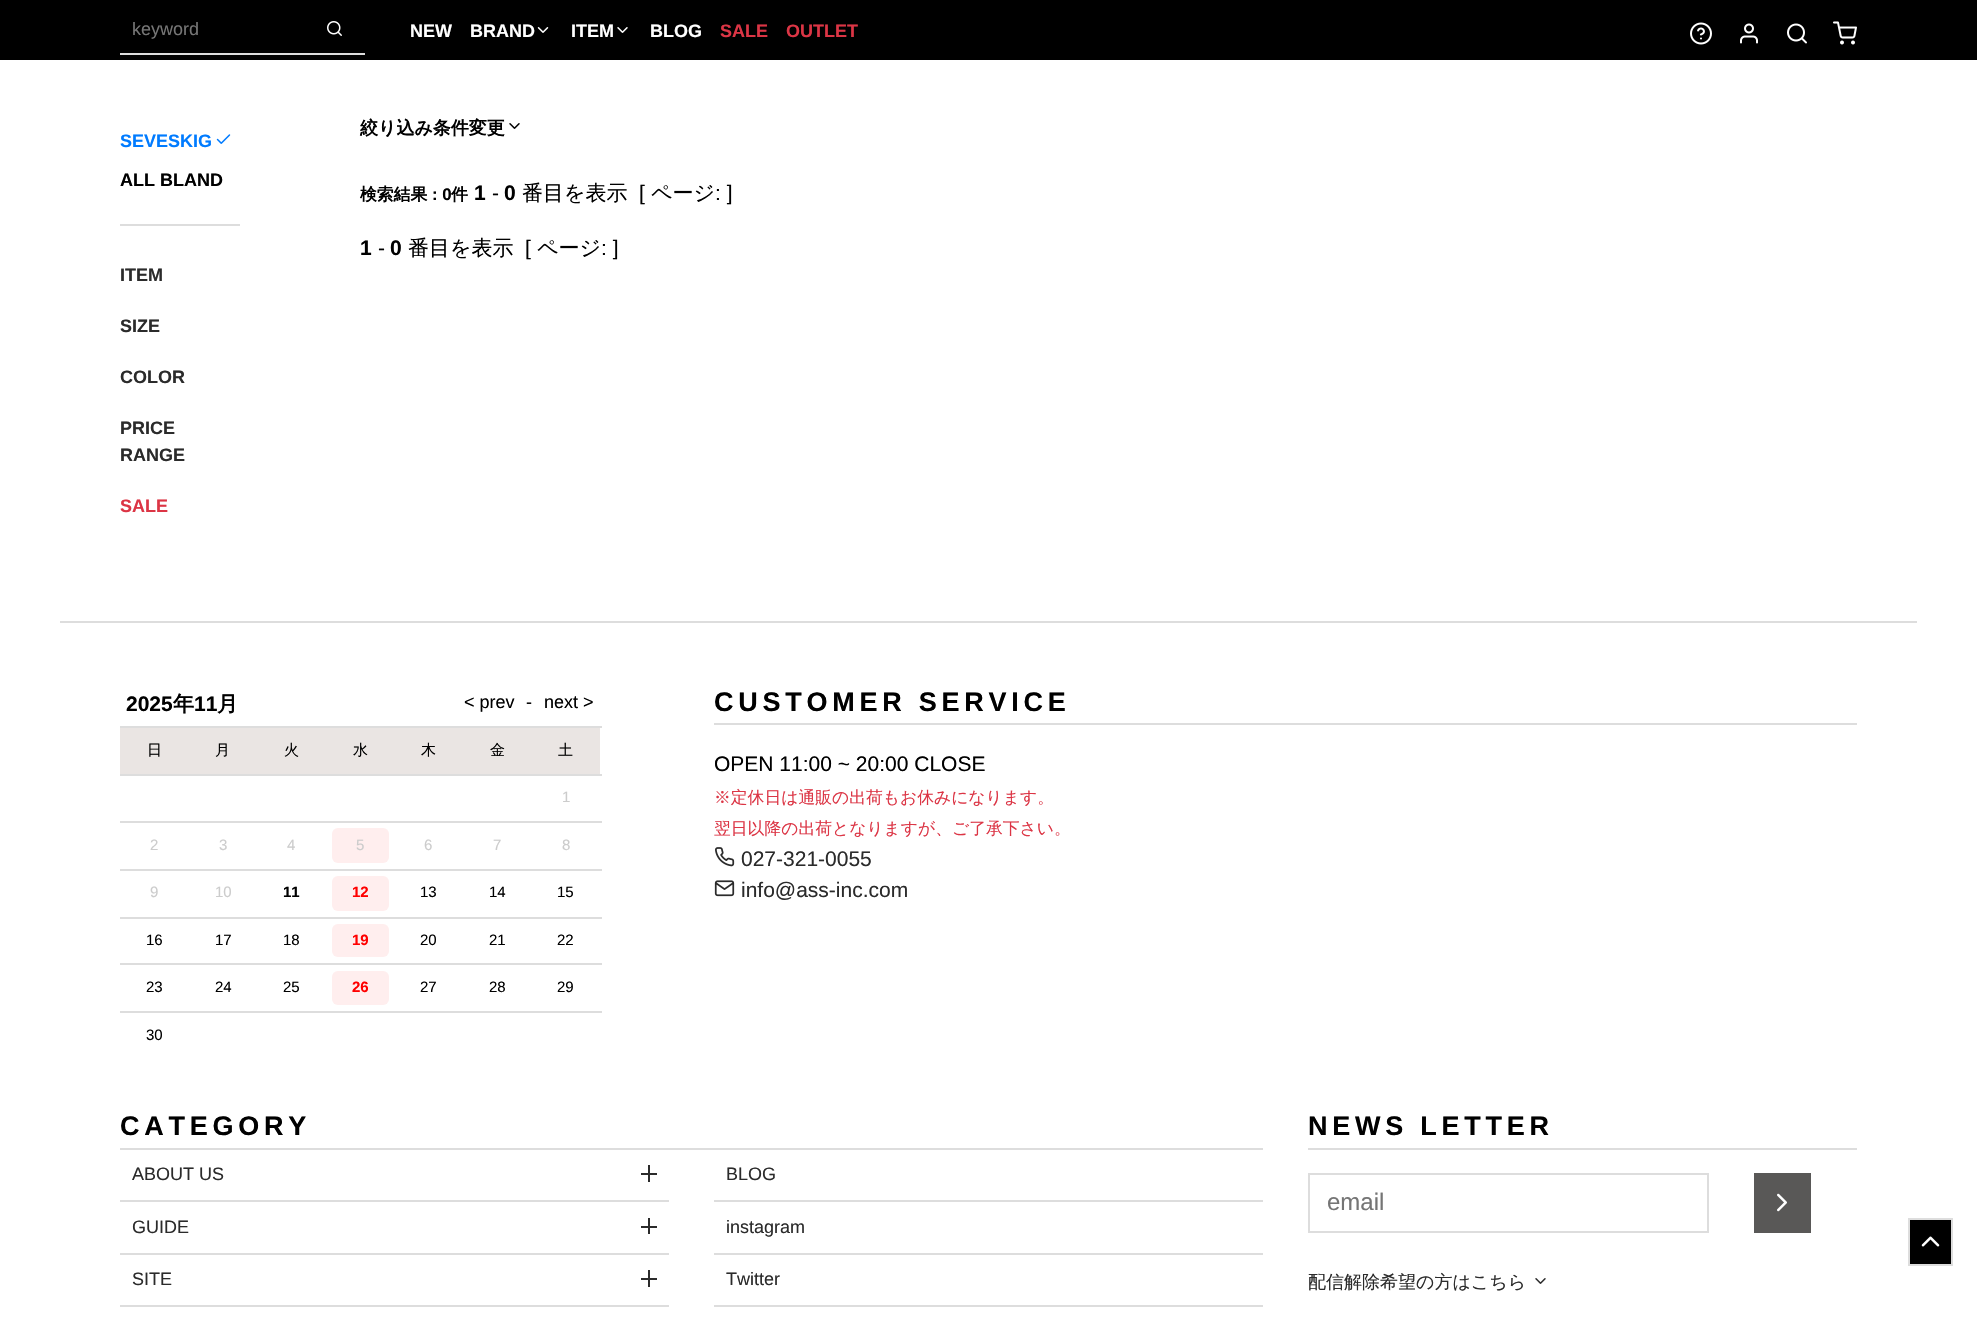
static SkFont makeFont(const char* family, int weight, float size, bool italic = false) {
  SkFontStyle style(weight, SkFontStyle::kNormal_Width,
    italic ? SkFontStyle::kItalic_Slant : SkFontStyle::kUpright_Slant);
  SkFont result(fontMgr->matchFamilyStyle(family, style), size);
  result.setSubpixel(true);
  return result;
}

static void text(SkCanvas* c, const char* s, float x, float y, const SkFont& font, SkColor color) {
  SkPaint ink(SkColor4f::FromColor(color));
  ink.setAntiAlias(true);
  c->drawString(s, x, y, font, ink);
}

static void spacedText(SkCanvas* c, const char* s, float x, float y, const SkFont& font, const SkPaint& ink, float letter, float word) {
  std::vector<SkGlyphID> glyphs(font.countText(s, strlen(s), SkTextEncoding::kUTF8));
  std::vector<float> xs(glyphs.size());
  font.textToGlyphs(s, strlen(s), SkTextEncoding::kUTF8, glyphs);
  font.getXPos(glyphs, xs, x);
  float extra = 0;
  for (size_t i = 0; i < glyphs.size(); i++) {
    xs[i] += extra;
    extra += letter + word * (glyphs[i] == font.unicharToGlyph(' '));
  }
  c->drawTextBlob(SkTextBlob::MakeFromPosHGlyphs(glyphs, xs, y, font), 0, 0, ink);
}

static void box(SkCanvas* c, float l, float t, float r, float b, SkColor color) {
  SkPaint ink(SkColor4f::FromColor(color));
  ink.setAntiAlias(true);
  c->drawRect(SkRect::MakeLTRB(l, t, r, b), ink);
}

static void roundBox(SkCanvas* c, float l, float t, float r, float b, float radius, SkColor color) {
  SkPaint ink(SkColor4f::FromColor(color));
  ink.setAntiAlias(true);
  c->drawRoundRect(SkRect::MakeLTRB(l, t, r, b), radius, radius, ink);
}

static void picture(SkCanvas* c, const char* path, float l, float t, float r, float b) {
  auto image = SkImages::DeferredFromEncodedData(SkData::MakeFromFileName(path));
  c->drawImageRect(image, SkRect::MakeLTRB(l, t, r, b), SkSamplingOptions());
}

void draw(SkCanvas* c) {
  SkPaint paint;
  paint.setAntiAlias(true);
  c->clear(0xffffffff);
  box(c, 0, 0, 1977, 60, 0xff000000);
  box(c, 120, 53, 365, 55, 0xffdddddd);
  SkFont face1 = makeFont("Liberation Sans", 400, 18);
  text(c, "keyword", 132, 35, face1, 0xff757575);
  picture(c, "img_01.png", 327, 21, 342, 36);
  SkFont face2 = makeFont("Liberation Sans", 700, 18);
  text(c, "NEW", 410, 37, face2, 0xffffffff);
  text(c, "BRAND", 470, 37, face2, 0xffffffff);
  picture(c, "img_02.png", 537, 27, 549, 33);
  text(c, "ITEM", 571, 37, face2, 0xffffffff);
  picture(c, "img_03.png", 617, 27, 628, 33);
  text(c, "BLOG", 650, 37, face2, 0xffffffff);
  text(c, "SALE", 720, 37, face2, 0xffdc3545);
  text(c, "OUTLET", 786, 37, face2, 0xffdc3545);
  picture(c, "img_04.png", 1690, 22, 1712, 45);
  picture(c, "img_05.png", 1740, 23, 1758, 44);
  picture(c, "img_06.png", 1787, 23, 1807, 44);
  picture(c, "img_07.png", 1833, 21, 1857, 45);
  text(c, "SEVESKIG", 120, 147, face2, 0xff007bff);
  picture(c, "img_08.png", 216, 134, 231, 144);
  text(c, "ALL BLAND", 120, 186, face2, 0xff000000);
  box(c, 120, 224, 240, 226, 0xffdddddd);
  text(c, "ITEM", 120, 281, face2, 0xff2b2b2b);
  text(c, "SIZE", 120, 332, face2, 0xff2b2b2b);
  text(c, "COLOR", 120, 383, face2, 0xff2b2b2b);
  text(c, "PRICE", 120, 434, face2, 0xff2b2b2b);
  text(c, "RANGE", 120, 461, face2, 0xff2b2b2b);
  text(c, "SALE", 120, 512, face2, 0xffdc3545);
  SkFont face3 = makeFont("WenQuanYi Zen Hei", 700, 18);
  text(c, "絞り込み条件変更", 360, 134, face3, 0xff000000);
  picture(c, "img_09.png", 509, 123, 520, 129);
  SkFont face4 = makeFont("WenQuanYi Zen Hei", 700, 16.8f);
  text(c, "検索結果", 360, 200, face4, 0xff000000);
  SkFont face5 = makeFont("Liberation Sans", 700, 16.8f);
  text(c, ": 0", 432, 200, face5, 0xff000000);
  text(c, "件", 451, 200, face4, 0xff000000);
  SkFont face6 = makeFont("Liberation Sans", 700, 21);
  text(c, "1", 474, 200, face6, 0xff000000);
  SkFont face7 = makeFont("Liberation Sans", 400, 21);
  text(c, "-", 492, 200, face7, 0xff000000);
  text(c, "0", 504, 200, face6, 0xff000000);
  SkFont face8 = makeFont("WenQuanYi Zen Hei", 500, 21);
  text(c, "番目を表示", 522, 200, face8, 0xff000000);
  text(c, "[", 639, 200, face7, 0xff000000);
  text(c, "ページ", 651, 200, face8, 0xff000000);
  text(c, ": ]", 715, 200, face7, 0xff000000);
  text(c, "1", 360, 255, face6, 0xff000000);
  text(c, "-", 378, 255, face7, 0xff000000);
  text(c, "0", 390, 255, face6, 0xff000000);
  text(c, "番目を表示", 408, 255, face8, 0xff000000);
  text(c, "[", 525, 255, face7, 0xff000000);
  text(c, "ページ", 537, 255, face8, 0xff000000);
  text(c, ": ]", 601, 255, face7, 0xff000000);
  box(c, 60, 621, 1917, 623, 0xffdddddd);
  text(c, "2025", 126, 711, face6, 0xff000000);
  SkFont face9 = makeFont("WenQuanYi Zen Hei", 700, 21);
  text(c, "年", 173, 711, face9, 0xff000000);
  text(c, "11", 194, 711, face6, 0xff000000);
  text(c, "月", 217, 711, face9, 0xff000000);
  text(c, "< prev", 464, 708, face1, 0xff000000);
  text(c, "-", 526, 708, face1, 0xff000000);
  text(c, "next >", 544, 708, face1, 0xff000000);
  box(c, 120, 728, 600, 774, 0xffeae5e3);
  SkFont face10 = makeFont("WenQuanYi Zen Hei", 500, 15);
  text(c, "日", 147, 755, face10, 0xff000000);
  text(c, "月", 215, 755, face10, 0xff000000);
  text(c, "火", 284, 755, face10, 0xff000000);
  text(c, "水", 353, 755, face10, 0xff000000);
  text(c, "木", 421, 755, face10, 0xff000000);
  text(c, "金", 490, 755, face10, 0xff000000);
  box(c, 120, 726, 602, 728, 0xffdddddd);
  text(c, "土", 558, 755, face10, 0xff000000);
  box(c, 120, 774, 602, 776, 0xffdddddd);
  SkFont face11 = makeFont("Liberation Sans", 400, 15);
  text(c, "1", 562, 802, face11, 0xffcccccc);
  text(c, "2", 150, 850, face11, 0xffcccccc);
  text(c, "3", 219, 850, face11, 0xffcccccc);
  text(c, "4", 287, 850, face11, 0xffcccccc);
  roundBox(c, 332, 828, 389, 863, 6, 0xffffeeee);
  text(c, "5", 356, 850, face11, 0xffcccccc);
  text(c, "6", 424, 850, face11, 0xffcccccc);
  text(c, "7", 493, 850, face11, 0xffcccccc);
  box(c, 120, 821, 602, 823, 0xffdddddd);
  text(c, "8", 562, 850, face11, 0xffcccccc);
  text(c, "9", 150, 897, face11, 0xffcccccc);
  text(c, "10", 215, 897, face11, 0xffcccccc);
  SkFont face12 = makeFont("Liberation Sans", 700, 15);
  text(c, "11", 283, 897, face12, 0xff000000);
  roundBox(c, 332, 876, 389, 911, 6, 0xffffeeee);
  text(c, "12", 352, 897, face12, 0xffff0000);
  text(c, "13", 420, 897, face11, 0xff000000);
  text(c, "14", 489, 897, face11, 0xff000000);
  box(c, 120, 869, 602, 871, 0xffdddddd);
  text(c, "15", 557, 897, face11, 0xff000000);
  text(c, "16", 146, 945, face11, 0xff000000);
  text(c, "17", 215, 945, face11, 0xff000000);
  text(c, "18", 283, 945, face11, 0xff000000);
  roundBox(c, 332, 924, 389, 957, 6, 0xffffeeee);
  text(c, "19", 352, 945, face12, 0xffff0000);
  text(c, "20", 420, 945, face11, 0xff000000);
  text(c, "21", 489, 945, face11, 0xff000000);
  box(c, 120, 917, 602, 919, 0xffdddddd);
  text(c, "22", 557, 945, face11, 0xff000000);
  text(c, "23", 146, 992, face11, 0xff000000);
  text(c, "24", 215, 992, face11, 0xff000000);
  text(c, "25", 283, 992, face11, 0xff000000);
  roundBox(c, 332, 971, 389, 1005, 6, 0xffffeeee);
  text(c, "26", 352, 992, face12, 0xffff0000);
  text(c, "27", 420, 992, face11, 0xff000000);
  text(c, "28", 489, 992, face11, 0xff000000);
  box(c, 120, 963, 602, 965, 0xffdddddd);
  text(c, "29", 557, 992, face11, 0xff000000);
  box(c, 120, 1011, 602, 1013, 0xffdddddd);
  text(c, "30", 146, 1040, face11, 0xff000000);
  box(c, 714, 723, 1857, 725, 0xffdddddd);
  SkFont face13 = makeFont("Liberation Sans", 700, 27);
  paint.setColor(0xff000000);
  spacedText(c, "CUSTOMER SERVICE", 714, 711, face13, paint, 4.75f, 0);
  text(c, "OPEN 11:00 ~ 20:00 CLOSE", 714, 771, face7, 0xff000000);
  SkFont face14 = makeFont("WenQuanYi Zen Hei", 500, 16.8f);
  text(c, "※定休日は通販の出荷もお休みになります。", 714, 803, face14, 0xffdc3545);
  text(c, "翌日以降の出荷となりますが、ご了承下さい。", 714, 834, face14, 0xffdc3545);
  picture(c, "img_10.png", 715, 847, 735, 867);
  text(c, "027-321-0055", 741, 866, face7, 0xff2b2b2b);
  picture(c, "img_11.png", 714, 880, 735, 897);
  text(c, "info@ass-inc.com", 741, 897, face7, 0xff2b2b2b);
  box(c, 120, 1148, 1263, 1150, 0xffdddddd);
  spacedText(c, "CATEGORY", 120, 1135, face13, paint, 4.75f, 0);
  box(c, 1308, 1148, 1857, 1150, 0xffdddddd);
  spacedText(c, "NEWS LETTER", 1308, 1135, face13, paint, 4.75f, 0);
  box(c, 120, 1200, 669, 1202, 0xffdddddd);
  text(c, "ABOUT US", 132, 1180, face1, 0xff2b2b2b);
  box(c, 641, 1173, 657, 1175, 0xff2b2b2b);
  box(c, 648, 1165, 650, 1182, 0xff2b2b2b);
  box(c, 120, 1253, 669, 1255, 0xffdddddd);
  text(c, "GUIDE", 132, 1233, face1, 0xff2b2b2b);
  box(c, 641, 1226, 657, 1228, 0xff2b2b2b);
  box(c, 648, 1218, 650, 1234, 0xff2b2b2b);
  box(c, 120, 1305, 669, 1307, 0xffdddddd);
  text(c, "SITE", 132, 1285, face1, 0xff2b2b2b);
  box(c, 641, 1278, 657, 1280, 0xff2b2b2b);
  box(c, 648, 1270, 650, 1287, 0xff2b2b2b);
  box(c, 714, 1200, 1263, 1202, 0xffdddddd);
  text(c, "BLOG", 726, 1180, face1, 0xff2b2b2b);
  box(c, 714, 1253, 1263, 1255, 0xffdddddd);
  text(c, "instagram", 726, 1233, face1, 0xff2b2b2b);
  box(c, 714, 1305, 1263, 1307, 0xffdddddd);
  text(c, "Twitter", 726, 1285, face1, 0xff2b2b2b);
  paint.setStyle(SkPaint::kStroke_Style);
  paint.setStrokeWidth(2);
  paint.setColor(0xffdddddd);
  c->drawRect(SkRect::MakeLTRB(1309, 1174, 1708, 1232), paint);
  SkFont face15 = makeFont("Liberation Sans", 400, 24);
  text(c, "email", 1327, 1210, face15, 0xff757575);
  box(c, 1754, 1173, 1811, 1233, 0xff595857);
  picture(c, "img_12.png", 1777, 1193, 1787, 1212);
  SkFont face16 = makeFont("WenQuanYi Zen Hei", 500, 18);
  text(c, "配信解除希望の方はこちら", 1308, 1288, face16, 0xff2b2b2b);
  picture(c, "img_13.png", 1535, 1278, 1546, 1284);
  paint.setStyle(SkPaint::kFill_Style);
  paint.setColor(0xff000000);
  c->drawRect(SkRect::MakeLTRB(1909, 1219, 1952, 1265), paint);
  paint.setStyle(SkPaint::kStroke_Style);
  paint.setColor(0xffdddddd);
  c->drawRect(SkRect::MakeLTRB(1909, 1219, 1952, 1265), paint);
  picture(c, "img_14.png", 1921, 1236, 1940, 1247);
}
